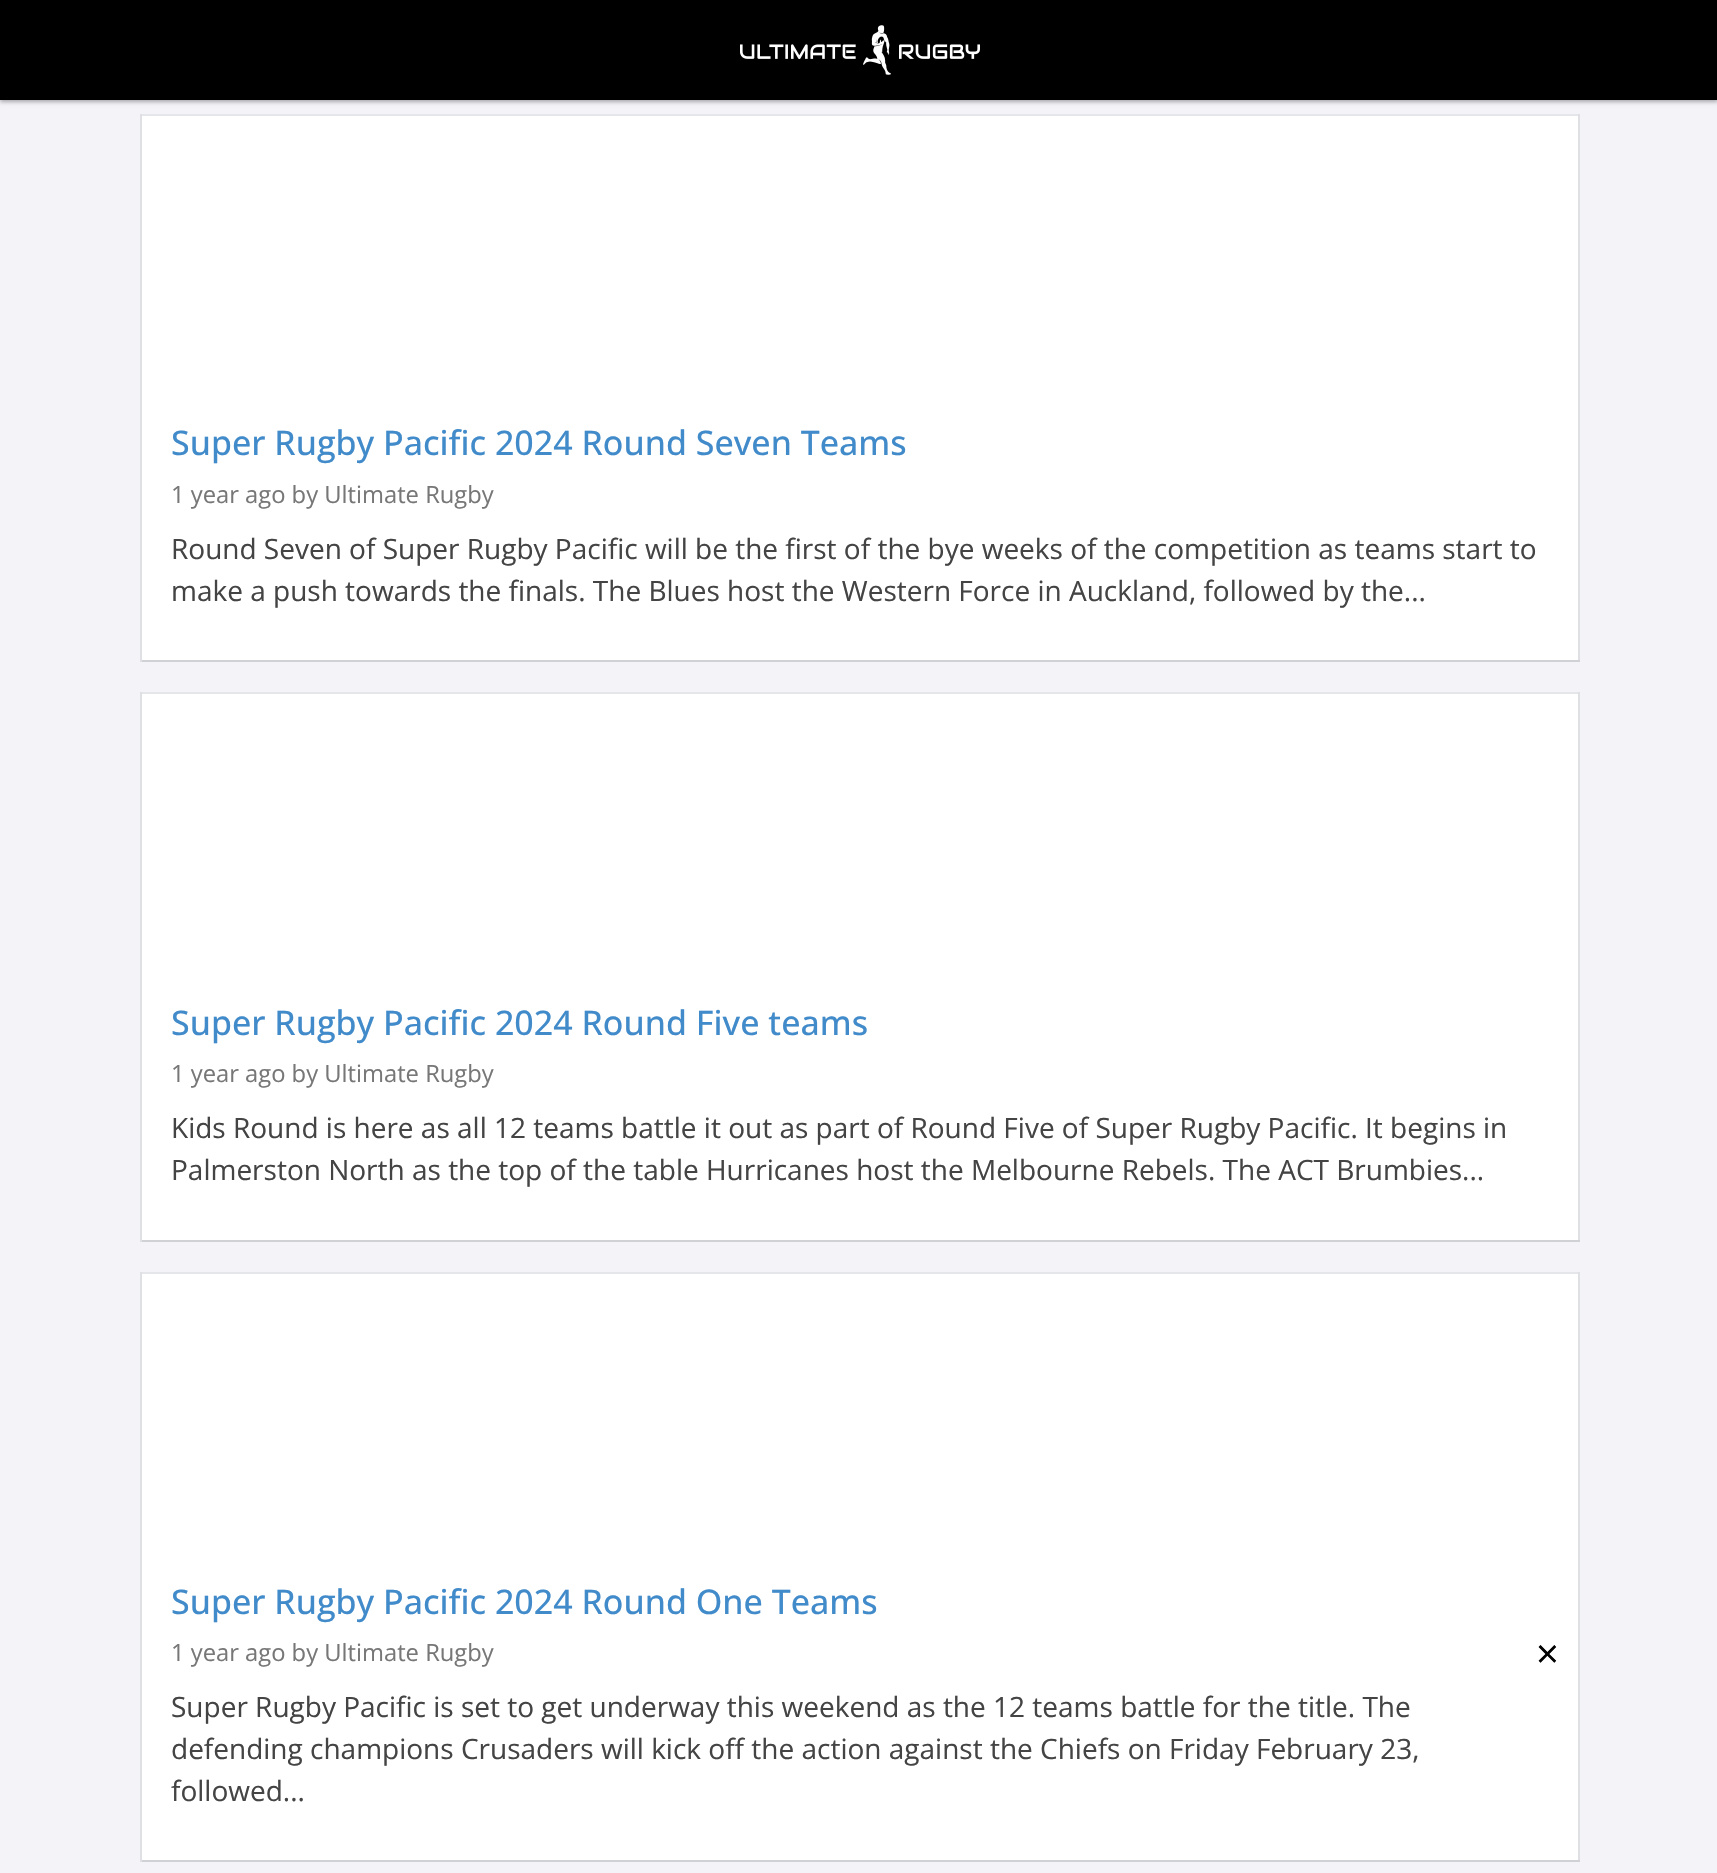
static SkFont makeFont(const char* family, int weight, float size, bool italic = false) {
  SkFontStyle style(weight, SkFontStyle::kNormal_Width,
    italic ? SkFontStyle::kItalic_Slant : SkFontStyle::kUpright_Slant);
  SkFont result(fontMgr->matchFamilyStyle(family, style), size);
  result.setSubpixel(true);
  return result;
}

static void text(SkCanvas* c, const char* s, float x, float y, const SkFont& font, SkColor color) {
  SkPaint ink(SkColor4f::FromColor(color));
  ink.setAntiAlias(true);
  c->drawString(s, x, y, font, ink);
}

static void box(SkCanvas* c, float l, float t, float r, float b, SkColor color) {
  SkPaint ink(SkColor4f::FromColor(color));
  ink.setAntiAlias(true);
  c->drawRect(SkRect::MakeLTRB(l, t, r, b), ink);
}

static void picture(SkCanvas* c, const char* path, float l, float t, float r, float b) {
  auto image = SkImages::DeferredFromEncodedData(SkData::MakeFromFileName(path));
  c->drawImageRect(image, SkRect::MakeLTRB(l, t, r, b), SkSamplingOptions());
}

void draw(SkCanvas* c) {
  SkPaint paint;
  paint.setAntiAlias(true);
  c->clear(0xfff3f3f8);
  paint.setColor(0x4d000000);
  paint.setMaskFilter(SkMaskFilter::MakeBlur(kNormal_SkBlurStyle, 2));
  c->drawRect(SkRect::MakeLTRB(0, 2, 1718, 102), paint);
  paint.setMaskFilter(nullptr);
  box(c, 0, 0, 1717, 100, 0xff000000);
  picture(c, "img_01.png", 740, 25, 980, 75);
  box(c, 142, 116, 1578, 660, 0xffffffff);
  box(c, 140, 114, 1580, 116, 0xffe5e6e9);
  box(c, 1578, 114, 1580, 662, 0xffdfe0e4);
  box(c, 140, 660, 1580, 662, 0xffd0d1d5);
  box(c, 140, 114, 142, 662, 0xffdfe0e4);
  SkFont face1 = makeFont("Open Sans", 500, 34);
  text(c, "Super Rugby Pacific 2024 Round Seven Teams", 171, 455, face1, 0xff428bca);
  SkFont face2 = makeFont("Open Sans", 400, 23.75f);
  text(c, "1 year ago by Ultimate Rugby", 171, 503, face2, 0xff777777);
  SkFont face3 = makeFont("Open Sans", 400, 28);
  text(c, "Round Seven of Super Rugby Pacific will be the first of the bye weeks of the competition as teams start to", 171, 559, face3, 0xff444444);
  text(c, "make a push towards the finals. The Blues host the Western Force in Auckland, followed by the...", 171, 601, face3, 0xff444444);
  box(c, 142, 694, 1578, 1240, 0xffffffff);
  box(c, 140, 692, 1580, 694, 0xffe5e6e9);
  box(c, 1578, 692, 1580, 1242, 0xffdfe0e4);
  box(c, 140, 1240, 1580, 1242, 0xffd0d1d5);
  box(c, 140, 692, 142, 1242, 0xffdfe0e4);
  text(c, "Super Rugby Pacific 2024 Round Five teams", 171, 1035, face1, 0xff428bca);
  text(c, "1 year ago by Ultimate Rugby", 171, 1082, face2, 0xff777777);
  text(c, "Kids Round is here as all 12 teams battle it out as part of Round Five of Super Rugby Pacific. It begins in", 171, 1138, face3, 0xff444444);
  text(c, "Palmerston North as the top of the table Hurricanes host the Melbourne Rebels. The ACT Brumbies...", 171, 1180, face3, 0xff444444);
  box(c, 142, 1274, 1578, 1860, 0xffffffff);
  box(c, 140, 1272, 1580, 1274, 0xffe5e6e9);
  box(c, 1578, 1272, 1580, 1862, 0xffdfe0e4);
  box(c, 140, 1860, 1580, 1862, 0xffd0d1d5);
  box(c, 140, 1272, 142, 1862, 0xffdfe0e4);
  text(c, "Super Rugby Pacific 2024 Round One Teams", 171, 1614, face1, 0xff428bca);
  text(c, "1 year ago by Ultimate Rugby", 171, 1661, face2, 0xff777777);
  text(c, "Super Rugby Pacific is set to get underway this weekend as the 12 teams battle for the title. The", 171, 1717, face3, 0xff444444);
  text(c, "defending champions Crusaders will kick off the action against the Chiefs on Friday February 23,", 171, 1759, face3, 0xff444444);
  text(c, "followed...", 171, 1801, face3, 0xff444444);
  SkFont face4 = makeFont("Open Sans", 400, 40);
  text(c, "×", 1536, 1668, face4, 0xff000000);
}
